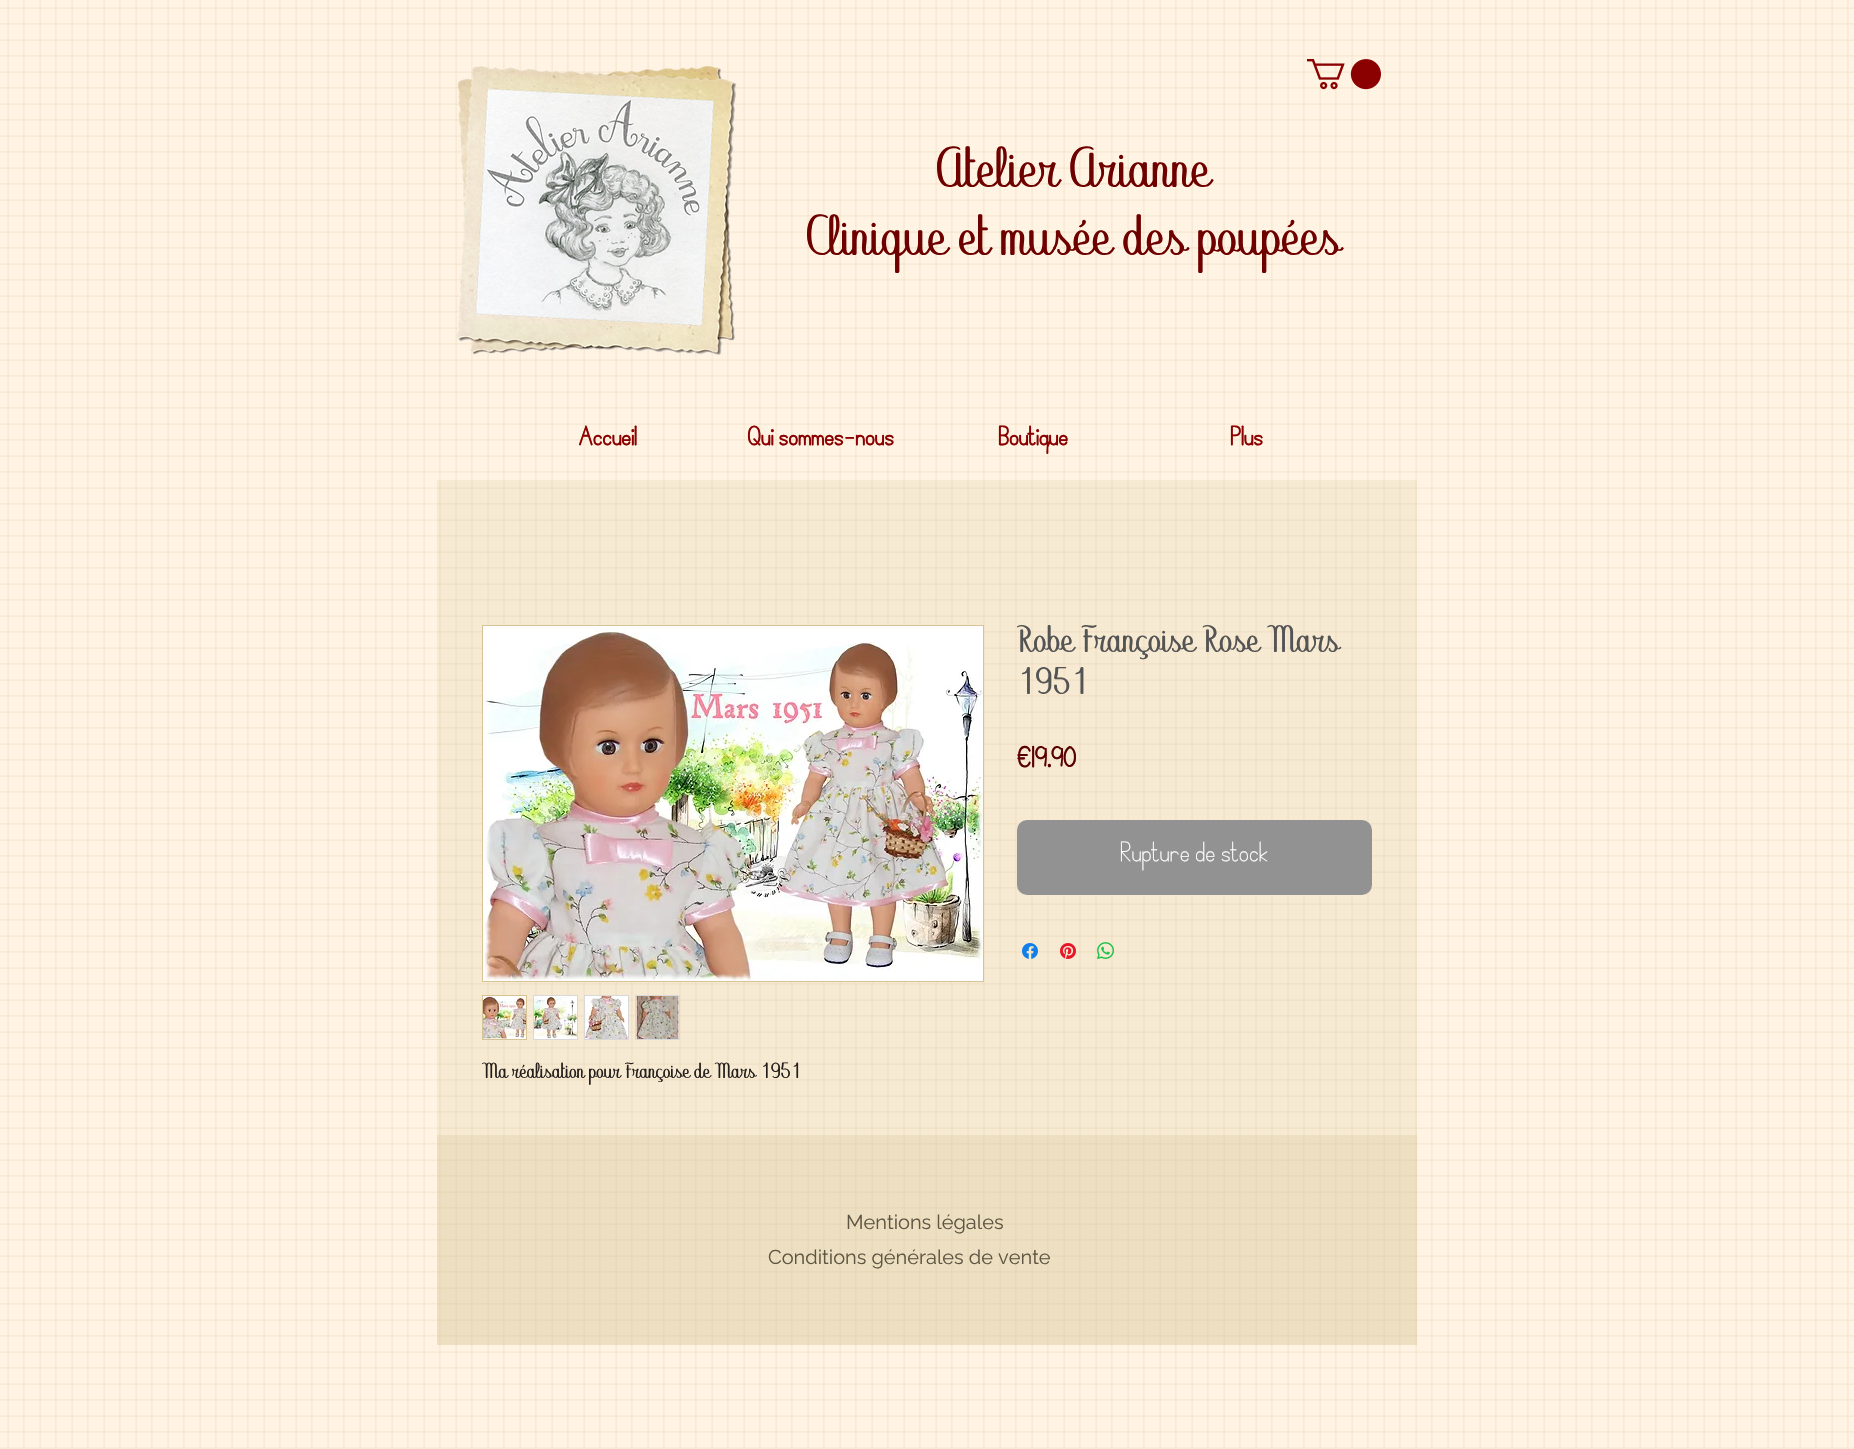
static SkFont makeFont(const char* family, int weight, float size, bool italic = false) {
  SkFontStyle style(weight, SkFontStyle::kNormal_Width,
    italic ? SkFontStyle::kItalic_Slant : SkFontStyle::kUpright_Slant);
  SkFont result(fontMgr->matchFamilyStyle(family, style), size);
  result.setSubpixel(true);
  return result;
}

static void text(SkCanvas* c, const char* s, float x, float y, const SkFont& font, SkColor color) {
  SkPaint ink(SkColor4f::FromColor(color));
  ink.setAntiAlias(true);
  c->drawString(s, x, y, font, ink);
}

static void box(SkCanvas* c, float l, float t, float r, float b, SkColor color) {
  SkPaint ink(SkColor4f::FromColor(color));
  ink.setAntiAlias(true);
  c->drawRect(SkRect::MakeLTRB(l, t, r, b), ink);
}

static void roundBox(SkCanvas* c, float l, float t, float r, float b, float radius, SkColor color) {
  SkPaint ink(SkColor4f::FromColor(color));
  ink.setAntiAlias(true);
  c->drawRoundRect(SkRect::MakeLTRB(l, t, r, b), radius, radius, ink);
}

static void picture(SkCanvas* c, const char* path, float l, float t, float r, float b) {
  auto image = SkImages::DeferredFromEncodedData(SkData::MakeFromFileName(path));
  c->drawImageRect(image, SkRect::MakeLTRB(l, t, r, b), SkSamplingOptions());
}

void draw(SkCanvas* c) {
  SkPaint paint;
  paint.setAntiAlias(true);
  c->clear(0xfffff4e3);
  picture(c, "img_01.png", 0, 0, 1854, 1449);
  picture(c, "img_02.png", 456, 66, 737, 355);
  picture(c, "img_03.png", 1307, 59, 1381, 90);
  SkFont face1 = makeFont("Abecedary", 400, 53);
  text(c, "Atelier Arianne", 937, 187, face1, 0xff6e0000);
  text(c, "Clinique et musée des poupées", 807, 255, face1, 0xff6e0000);
  SkFont face2 = makeFont("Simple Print", 700, 37);
  text(c, "Accueil", 578, 445, face2, 0xff8b0000);
  text(c, "Qui sommes-nous", 747, 445, face2, 0xff8b0000);
  text(c, "Boutique", 998, 445, face2, 0xff8b0000);
  text(c, "Plus", 1230, 445, face2, 0xff8b0000);
  box(c, 437, 480, 1417, 1135, 0x33d6c496);
  SkFont face3 = makeFont("Abecedary", 400, 35);
  text(c, "Robe Françoise Rose Mars", 1017, 652, face3, 0xff545454);
  text(c, "1951", 1017, 694, face3, 0xff545454);
  SkFont face4 = makeFont("Simple Print", 700, 40);
  text(c, "€19.90", 1017, 767, face4, 0xff5a0101);
  roundBox(c, 1017, 820, 1372, 895, 10, 0xff929292);
  SkFont face5 = makeFont("Simple Print", 400, 39);
  text(c, "Rupture de stock", 1120, 861, face5, 0xffffffff);
  picture(c, "img_04.png", 1022, 943, 1038, 959);
  picture(c, "img_05.png", 1060, 943, 1076, 959);
  picture(c, "img_06.png", 1097, 942, 1114, 959);
  paint.setStyle(SkPaint::kStroke_Style);
  paint.setStrokeWidth(1);
  paint.setColor(0xffd6c496);
  c->drawRect(SkRect::MakeLTRB(482.5f, 625.5f, 983.5f, 981.5f), paint);
  picture(c, "img_07.png", 483, 626, 983, 981);
  c->drawRect(SkRect::MakeLTRB(482.5f, 995.5f, 526.5f, 1039.5f), paint);
  picture(c, "img_08.png", 483, 996, 526, 1039);
  box(c, 533, 995, 578, 1040, 0xffd9d9d9);
  picture(c, "img_09.png", 534, 996, 577, 1039);
  box(c, 584, 995, 629, 1040, 0xffd9d9d9);
  picture(c, "img_10.png", 585, 996, 628, 1039);
  box(c, 635, 995, 680, 1040, 0xffd9d9d9);
  picture(c, "img_11.png", 636, 996, 679, 1039);
  SkFont face6 = makeFont("Abecedary", 400, 20);
  text(c, "Ma réalisation pour Françoise de Mars 1951", 482, 1078, face6, 0xff251e1b);
  SkFont face7 = makeFont("Raleway", 400, 20);
  text(c, "Mentions légales", 846, 1229, face7, 0xff000000);
  text(c, "Conditions générales de vente", 768, 1264, face7, 0xff000000);
  box(c, 437, 1135, 1417, 1345, 0x70d6c496);
}
